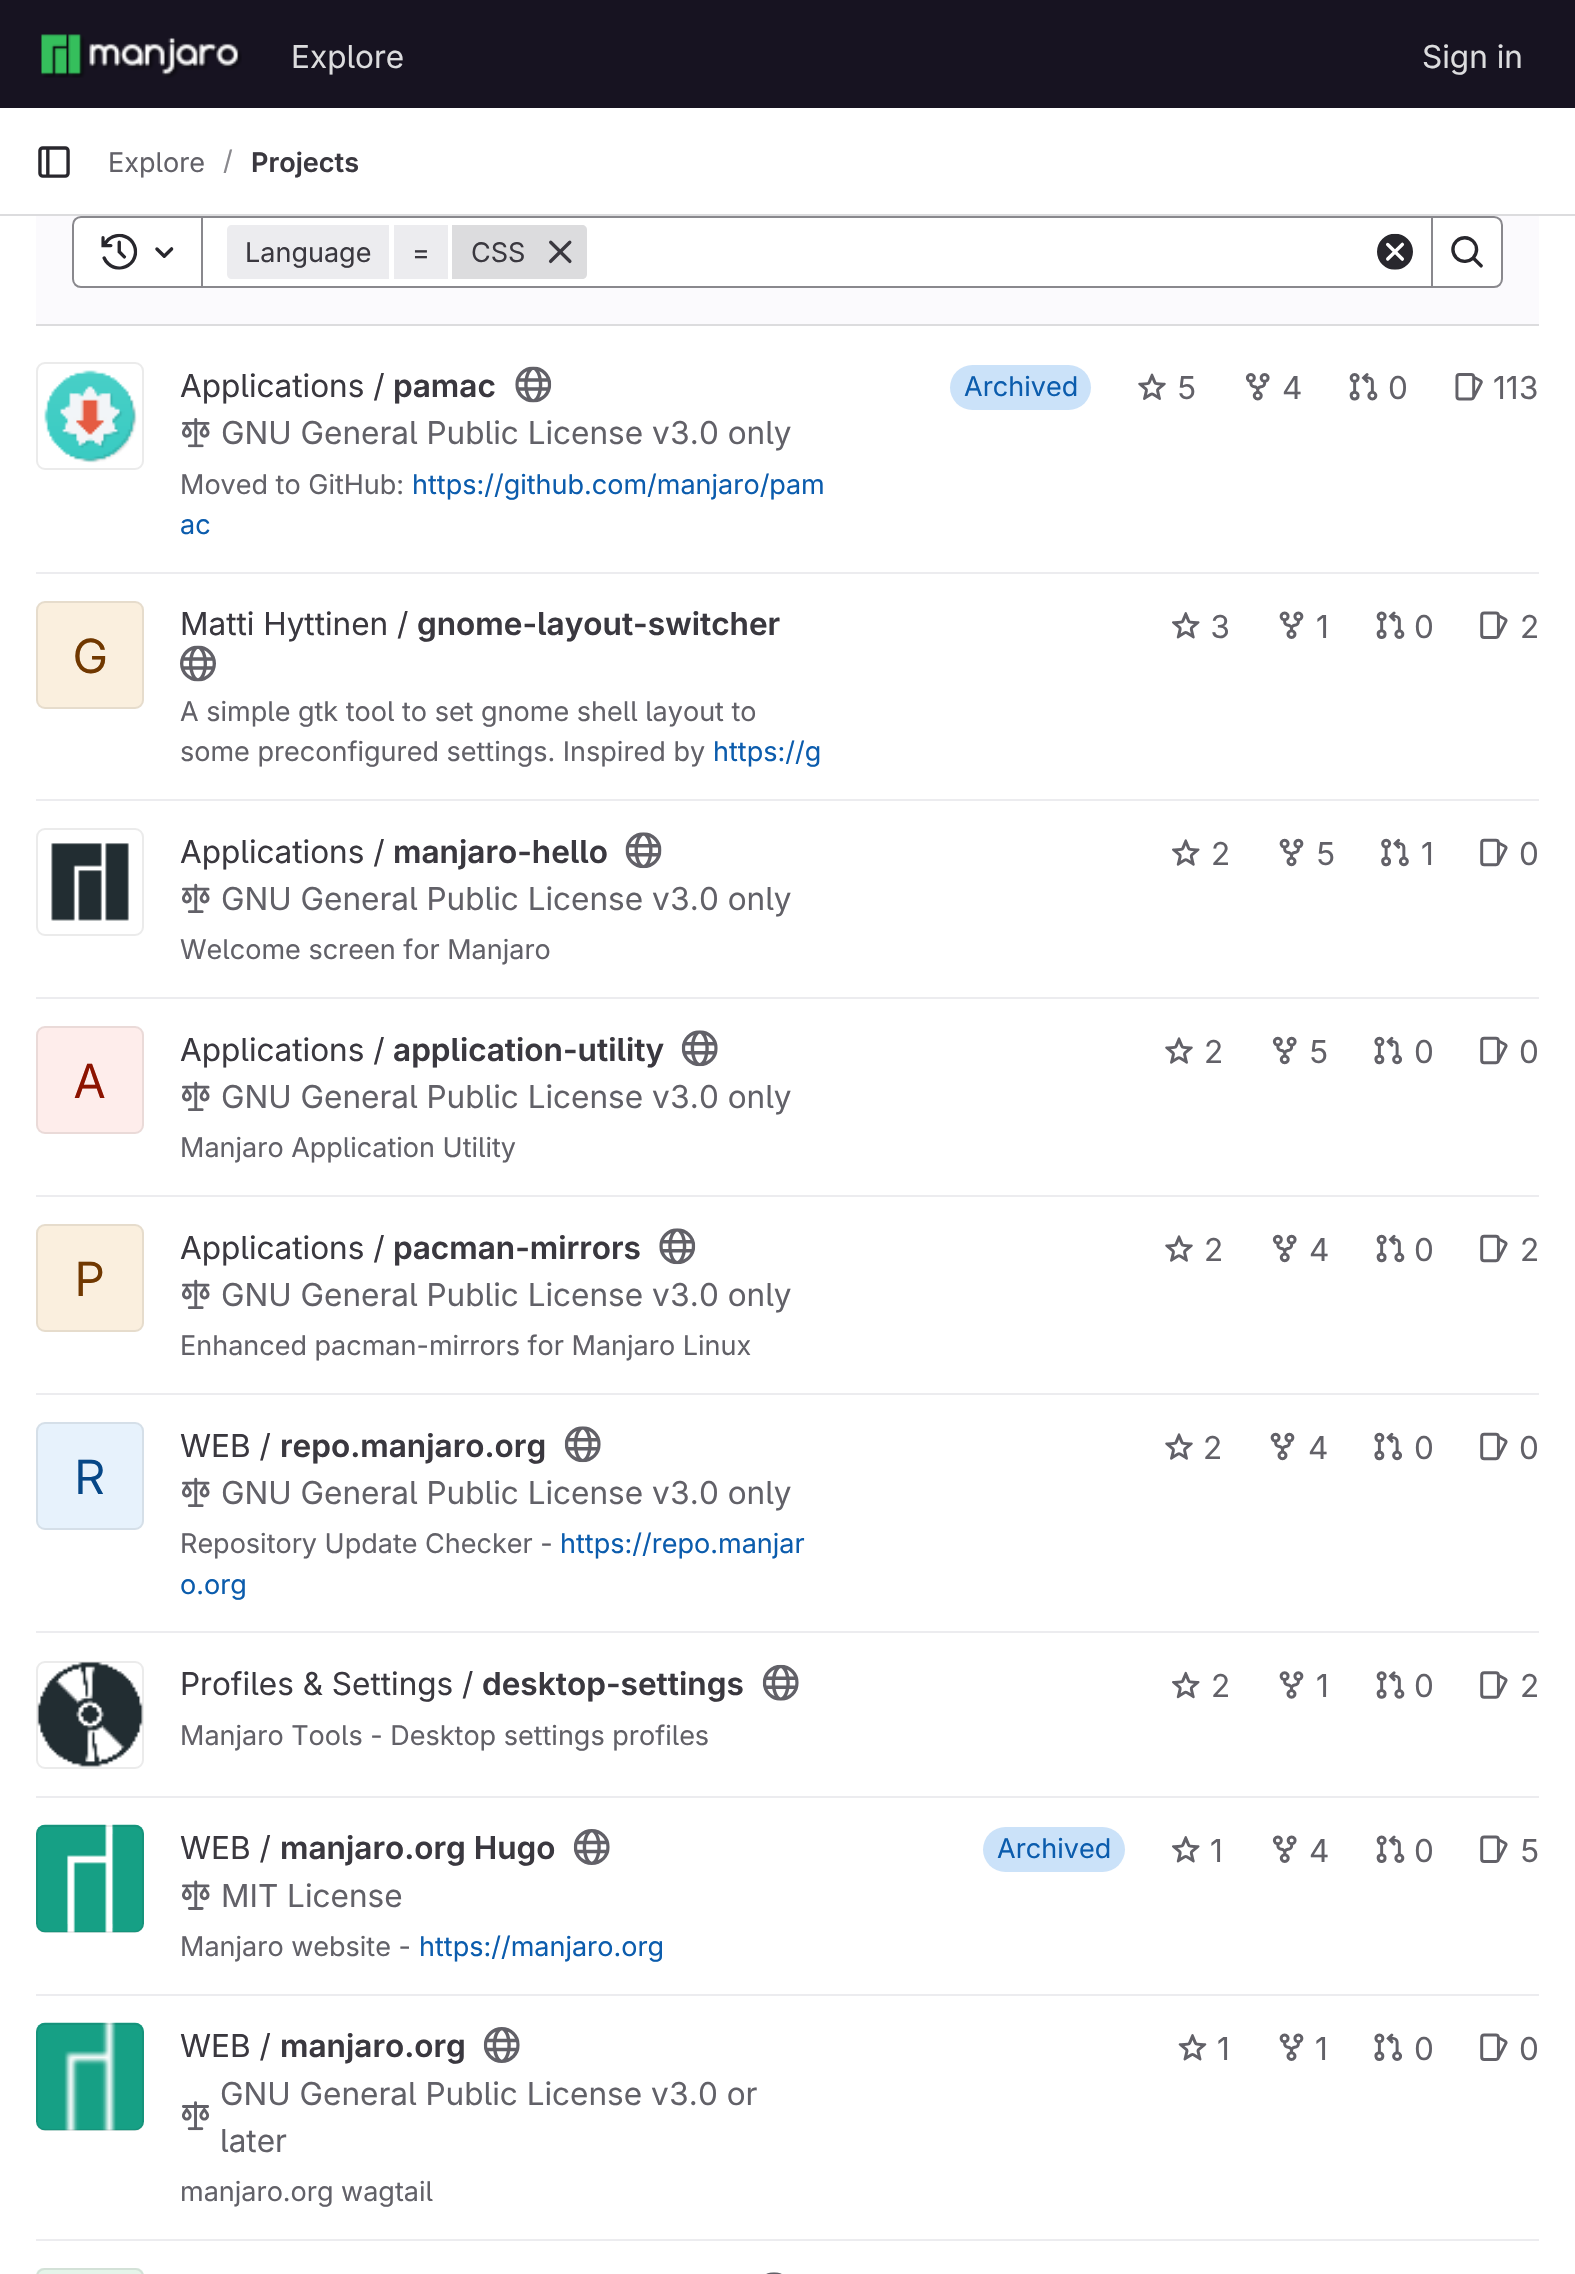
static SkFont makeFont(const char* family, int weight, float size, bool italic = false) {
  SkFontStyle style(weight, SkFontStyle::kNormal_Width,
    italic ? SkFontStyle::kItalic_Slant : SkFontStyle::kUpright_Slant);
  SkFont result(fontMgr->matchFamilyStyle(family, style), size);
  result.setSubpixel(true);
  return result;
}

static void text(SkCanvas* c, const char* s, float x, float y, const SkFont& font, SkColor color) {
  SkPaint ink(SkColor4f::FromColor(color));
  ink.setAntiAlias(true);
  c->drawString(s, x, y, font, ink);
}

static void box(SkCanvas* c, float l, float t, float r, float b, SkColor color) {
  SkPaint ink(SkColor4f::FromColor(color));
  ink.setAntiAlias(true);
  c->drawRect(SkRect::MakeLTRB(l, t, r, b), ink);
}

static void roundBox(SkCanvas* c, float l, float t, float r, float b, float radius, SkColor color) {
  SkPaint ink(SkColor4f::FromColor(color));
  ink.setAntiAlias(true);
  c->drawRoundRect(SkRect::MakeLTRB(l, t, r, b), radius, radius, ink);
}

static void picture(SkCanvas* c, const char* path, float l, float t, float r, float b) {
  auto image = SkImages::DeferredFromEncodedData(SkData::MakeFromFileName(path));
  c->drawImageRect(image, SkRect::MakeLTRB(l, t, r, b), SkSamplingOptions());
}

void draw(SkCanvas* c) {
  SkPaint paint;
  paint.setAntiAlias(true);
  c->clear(0xffffffff);
  box(c, 0, 0, 1575, 108, 0xff171321);
  picture(c, "img_01.png", 41, 34, 242, 78);
  SkFont face1 = makeFont("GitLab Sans", 400, 31.5f);
  text(c, "Explore", 291, 68, face1, 0xffdcdcde);
  text(c, "Sign in", 1422, 68, face1, 0xffdcdcde);
  box(c, 0, 214, 1575, 216, 0xffdcdcde);
  picture(c, "img_02.png", 38, 146, 70, 178);
  SkFont face2 = makeFont("GitLab Sans", 400, 27);
  text(c, "Explore", 108, 172, face2, 0xff626168);
  text(c, "/", 223, 170, face2, 0xff89888d);
  SkFont face3 = makeFont("GitLab Sans", 600, 27);
  text(c, "Projects", 251, 172, face3, 0xff3a383f);
  box(c, 36, 216, 1539, 324, 0xfffbfafd);
  box(c, 36, 324, 1539, 326, 0xffdcdcde);
  box(c, 203, 218, 1431, 286, 0xffffffff);
  paint.setStyle(SkPaint::kStroke_Style);
  paint.setStrokeWidth(2);
  paint.setColor(0xff89888d);
  c->drawRect(SkRect::MakeLTRB(201, 217, 1432, 287), paint);
  paint.setStyle(SkPaint::kFill_Style);
  paint.setColor(0xffffffff);
  c->drawPath(SkPathBuilder().moveTo(81, 217).lineTo(202, 217).lineTo(202, 287).lineTo(81, 287).cubicTo(76.5f, 287, 73, 283.5f, 73, 279).lineTo(73, 225).cubicTo(73, 220.5f, 76.5f, 217, 81, 217).close().detach(), paint);
  paint.setStyle(SkPaint::kStroke_Style);
  paint.setColor(0xff89888d);
  c->drawPath(SkPathBuilder().moveTo(81, 217).lineTo(202, 217).lineTo(202, 287).lineTo(81, 287).cubicTo(76.5f, 287, 73, 283.5f, 73, 279).lineTo(73, 225).cubicTo(73, 220.5f, 76.5f, 217, 81, 217).close().detach(), paint);
  picture(c, "img_03.png", 101, 233, 138, 270);
  picture(c, "img_04.png", 155, 247, 174, 258);
  paint.setStyle(SkPaint::kFill_Style);
  paint.setColor(0xffececef);
  c->drawPath(SkPathBuilder().moveTo(232, 225).lineTo(389, 225).lineTo(389, 279).lineTo(232, 279).cubicTo(229, 279, 227, 277, 227, 274).lineTo(227, 230).cubicTo(227, 227, 229, 225, 232, 225).close().detach(), paint);
  text(c, "Language", 245, 262, face2, 0xff3a383f);
  box(c, 394, 225, 448, 279, 0xffececef);
  text(c, "=", 412, 262, face2, 0xff3a383f);
  paint.setColor(0xffdcdcde);
  c->drawPath(SkPathBuilder().moveTo(452, 225).lineTo(582, 225).cubicTo(585, 225, 587, 227, 587, 230).lineTo(587, 274).cubicTo(587, 277, 585, 279, 582, 279).lineTo(452, 279).close().detach(), paint);
  text(c, "CSS", 471, 262, face2, 0xff3a383f);
  picture(c, "img_05.png", 548, 240, 572, 264);
  picture(c, "img_06.png", 1377, 233, 1413, 270);
  paint.setColor(0xffffffff);
  c->drawPath(SkPathBuilder().moveTo(1432, 217).lineTo(1494, 217).cubicTo(1498.5f, 217, 1502, 220.5f, 1502, 225).lineTo(1502, 279).cubicTo(1502, 283.5f, 1498.5f, 287, 1494, 287).lineTo(1432, 287).close().detach(), paint);
  paint.setStyle(SkPaint::kStroke_Style);
  paint.setColor(0xff89888d);
  c->drawPath(SkPathBuilder().moveTo(1432, 217).lineTo(1494, 217).cubicTo(1498.5f, 217, 1502, 220.5f, 1502, 225).lineTo(1502, 279).cubicTo(1502, 283.5f, 1498.5f, 287, 1494, 287).lineTo(1432, 287).close().detach(), paint);
  picture(c, "img_07.png", 1451, 236, 1483, 268);
  box(c, 36, 572, 1539, 574, 0xffececef);
  picture(c, "img_08.png", 44, 370, 137, 463);
  paint.setColor(0xffebebeb);
  c->drawRoundRect(SkRect::MakeLTRB(37, 363, 143, 469), 8, 8, paint);
  text(c, "Applications /", 180, 397, face1, 0xff3a383f);
  SkFont face4 = makeFont("GitLab Sans", 600, 31.5f);
  text(c, "pamac", 393, 397, face4, 0xff3a383f);
  picture(c, "img_09.png", 515, 366, 552, 403);
  picture(c, "img_10.png", 182, 418, 210, 448);
  text(c, "GNU General Public License v3.0 only", 221, 444, face1, 0xff626168);
  text(c, "Moved to GitHub:", 180, 494, face2, 0xff626168);
  text(c, "https://github.com/manjaro/pam", 412, 494, face2, 0xff0b5cad);
  text(c, "ac", 180, 534, face2, 0xff0b5cad);
  roundBox(c, 950, 365, 1091, 410, 22.5f, 0xffcbe2f9);
  text(c, "Archived", 964, 396, face2, 0xff0b5cad);
  picture(c, "img_11.png", 1138, 373, 1166, 400);
  text(c, "5", 1177, 399, face1, 0xff626168);
  picture(c, "img_12.png", 1245, 373, 1270, 401);
  text(c, "4", 1282, 399, face1, 0xff626168);
  picture(c, "img_13.png", 1349, 373, 1378, 401);
  text(c, "0", 1388, 399, face1, 0xff626168);
  picture(c, "img_14.png", 1455, 373, 1483, 401);
  text(c, "113", 1493, 399, face1, 0xff626168);
  box(c, 36, 799, 1539, 801, 0xffececef);
  text(c, "Matti Hyttinen /", 180, 635, face1, 0xff3a383f);
  text(c, "gnome-layout-switcher", 417, 635, face4, 0xff3a383f);
  picture(c, "img_15.png", 180, 645, 216, 682);
  text(c, "A simple gtk tool to set gnome shell layout to", 180, 721, face2, 0xff626168);
  text(c, "some preconfigured settings. Inspired by", 180, 761, face2, 0xff626168);
  text(c, "https://g", 713, 761, face2, 0xff0b5cad);
  picture(c, "img_16.png", 1172, 612, 1200, 639);
  text(c, "3", 1210, 638, face1, 0xff626168);
  picture(c, "img_17.png", 1279, 611, 1304, 639);
  text(c, "1", 1316, 638, face1, 0xff626168);
  picture(c, "img_18.png", 1376, 611, 1405, 639);
  text(c, "0", 1414, 638, face1, 0xff626168);
  picture(c, "img_19.png", 1480, 611, 1508, 639);
  text(c, "2", 1520, 638, face1, 0xff626168);
  roundBox(c, 36, 601, 144, 709, 9, 0xfffaefde);
  paint.setColor(0x14050506);
  c->drawRoundRect(SkRect::MakeLTRB(37, 602, 143, 708), 8, 8, paint);
  SkFont face5 = makeFont("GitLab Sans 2", 400, 47);
  text(c, "G", 73, 673, face5, 0xff703800);
  box(c, 36, 997, 1539, 999, 0xffececef);
  picture(c, "img_20.png", 51, 843, 129, 921);
  paint.setColor(0xffebebeb);
  c->drawRoundRect(SkRect::MakeLTRB(37, 829, 143, 935), 8, 8, paint);
  text(c, "Applications /", 180, 863, face1, 0xff3a383f);
  text(c, "manjaro-hello", 393, 863, face4, 0xff3a383f);
  picture(c, "img_21.png", 625, 832, 662, 869);
  picture(c, "img_22.png", 182, 883, 210, 913);
  text(c, "GNU General Public License v3.0 only", 221, 910, face1, 0xff626168);
  text(c, "Welcome screen for Manjaro", 180, 959, face2, 0xff626168);
  picture(c, "img_23.png", 1172, 839, 1200, 866);
  text(c, "2", 1211, 865, face1, 0xff626168);
  picture(c, "img_24.png", 1279, 838, 1304, 867);
  text(c, "5", 1316, 865, face1, 0xff626168);
  picture(c, "img_25.png", 1381, 838, 1409, 867);
  text(c, "1", 1421, 865, face1, 0xff626168);
  picture(c, "img_26.png", 1480, 838, 1508, 867);
  text(c, "0", 1519, 865, face1, 0xff626168);
  box(c, 36, 1195, 1539, 1197, 0xffececef);
  text(c, "Applications /", 180, 1061, face1, 0xff3a383f);
  text(c, "application-utility", 393, 1061, face4, 0xff3a383f);
  picture(c, "img_27.png", 681, 1030, 718, 1067);
  picture(c, "img_22.png", 182, 1081, 210, 1111);
  text(c, "GNU General Public License v3.0 only", 221, 1108, face1, 0xff626168);
  text(c, "Manjaro Application Utility", 180, 1157, face2, 0xff626168);
  picture(c, "img_28.png", 1165, 1037, 1193, 1064);
  text(c, "2", 1204, 1063, face1, 0xff626168);
  picture(c, "img_29.png", 1272, 1036, 1297, 1065);
  text(c, "5", 1309, 1063, face1, 0xff626168);
  picture(c, "img_30.png", 1374, 1036, 1402, 1065);
  text(c, "0", 1414, 1063, face1, 0xff626168);
  picture(c, "img_31.png", 1480, 1036, 1508, 1065);
  text(c, "0", 1519, 1063, face1, 0xff626168);
  roundBox(c, 36, 1026, 144, 1134, 9, 0xfffeedeb);
  paint.setColor(0x14050506);
  c->drawRoundRect(SkRect::MakeLTRB(37, 1027, 143, 1133), 8, 8, paint);
  text(c, "A", 74, 1098, face5, 0xff8d1300);
  box(c, 36, 1393, 1539, 1395, 0xffececef);
  text(c, "Applications /", 180, 1259, face1, 0xff3a383f);
  text(c, "pacman-mirrors", 393, 1259, face4, 0xff3a383f);
  picture(c, "img_32.png", 659, 1228, 696, 1265);
  picture(c, "img_33.png", 182, 1279, 210, 1309);
  text(c, "GNU General Public License v3.0 only", 221, 1306, face1, 0xff626168);
  text(c, "Enhanced pacman-mirrors for Manjaro Linux", 180, 1355, face2, 0xff626168);
  picture(c, "img_34.png", 1165, 1235, 1193, 1262);
  text(c, "2", 1204, 1261, face1, 0xff626168);
  picture(c, "img_35.png", 1272, 1234, 1297, 1263);
  text(c, "4", 1309, 1261, face1, 0xff626168);
  picture(c, "img_36.png", 1376, 1234, 1405, 1263);
  text(c, "0", 1414, 1261, face1, 0xff626168);
  picture(c, "img_26.png", 1480, 1234, 1508, 1263);
  text(c, "2", 1520, 1261, face1, 0xff626168);
  roundBox(c, 36, 1224, 144, 1332, 9, 0xfffaefde);
  c->drawRoundRect(SkRect::MakeLTRB(37, 1225, 143, 1331), 8, 8, paint);
  text(c, "P", 75, 1296, face5, 0xff703800);
  box(c, 36, 1631, 1539, 1633, 0xffececef);
  text(c, "WEB /", 180, 1457, face1, 0xff3a383f);
  text(c, "repo.manjaro.org", 280, 1457, face4, 0xff3a383f);
  picture(c, "img_37.png", 564, 1426, 601, 1463);
  picture(c, "img_22.png", 182, 1477, 210, 1507);
  text(c, "GNU General Public License v3.0 only", 221, 1504, face1, 0xff626168);
  text(c, "Repository Update Checker -", 180, 1553, face2, 0xff626168);
  text(c, "https://repo.manjar", 560, 1553, face2, 0xff0b5cad);
  text(c, "o.org", 180, 1594, face2, 0xff0b5cad);
  picture(c, "img_34.png", 1165, 1433, 1193, 1460);
  text(c, "2", 1203, 1459, face1, 0xff626168);
  picture(c, "img_24.png", 1270, 1432, 1295, 1461);
  text(c, "4", 1308, 1459, face1, 0xff626168);
  picture(c, "img_38.png", 1374, 1432, 1402, 1461);
  text(c, "0", 1414, 1459, face1, 0xff626168);
  picture(c, "img_26.png", 1480, 1432, 1508, 1461);
  text(c, "0", 1519, 1459, face1, 0xff626168);
  roundBox(c, 36, 1422, 144, 1530, 9, 0xffe7f2fc);
  c->drawRoundRect(SkRect::MakeLTRB(37, 1423, 143, 1529), 8, 8, paint);
  SkFont face6 = makeFont("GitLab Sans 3", 400, 47);
  text(c, "R", 75, 1494, face6, 0xff064787);
  box(c, 36, 1796, 1539, 1798, 0xffececef);
  picture(c, "img_39.png", 37, 1662, 143, 1767);
  c->drawRoundRect(SkRect::MakeLTRB(37, 1662, 143, 1768), 8, 8, paint);
  text(c, "Profiles & Settings /", 180, 1695, face1, 0xff3a383f);
  text(c, "desktop-settings", 482, 1695, face4, 0xff3a383f);
  picture(c, "img_40.png", 762, 1664, 799, 1701);
  text(c, "Manjaro Tools - Desktop settings profiles", 180, 1745, face2, 0xff626168);
  picture(c, "img_41.png", 1172, 1671, 1200, 1699);
  text(c, "2", 1211, 1697, face1, 0xff626168);
  picture(c, "img_42.png", 1279, 1671, 1304, 1699);
  text(c, "1", 1316, 1697, face1, 0xff626168);
  picture(c, "img_43.png", 1376, 1671, 1405, 1699);
  text(c, "0", 1414, 1697, face1, 0xff626168);
  picture(c, "img_44.png", 1480, 1671, 1508, 1699);
  text(c, "2", 1520, 1697, face1, 0xff626168);
  box(c, 36, 1994, 1539, 1996, 0xffececef);
  picture(c, "img_45.png", 36, 1824, 144, 1933);
  c->drawRoundRect(SkRect::MakeLTRB(37, 1826, 143, 1932), 8, 8, paint);
  text(c, "WEB /", 180, 1859, face1, 0xff3a383f);
  text(c, "manjaro.org Hugo", 280, 1859, face4, 0xff3a383f);
  picture(c, "img_46.png", 573, 1829, 610, 1865);
  picture(c, "img_47.png", 182, 1880, 210, 1910);
  text(c, "MIT License", 221, 1907, face1, 0xff626168);
  text(c, "Manjaro website -", 180, 1956, face2, 0xff626168);
  text(c, "https://manjaro.org", 419, 1956, face2, 0xff0b5cad);
  roundBox(c, 983, 1827, 1125, 1872, 22.5f, 0xffcbe2f9);
  text(c, "Archived", 997, 1858, face2, 0xff0b5cad);
  picture(c, "img_16.png", 1172, 1836, 1200, 1863);
  text(c, "1", 1210, 1862, face1, 0xff626168);
  picture(c, "img_48.png", 1272, 1835, 1297, 1863);
  text(c, "4", 1309, 1862, face1, 0xff626168);
  picture(c, "img_18.png", 1376, 1835, 1405, 1863);
  text(c, "0", 1414, 1862, face1, 0xff626168);
  picture(c, "img_19.png", 1480, 1835, 1508, 1863);
  text(c, "5", 1520, 1862, face1, 0xff626168);
  box(c, 36, 2239, 1539, 2241, 0xffececef);
  picture(c, "img_49.png", 36, 2022, 144, 2131);
  c->drawRoundRect(SkRect::MakeLTRB(37, 2024, 143, 2130), 8, 8, paint);
  text(c, "WEB /", 180, 2057, face1, 0xff3a383f);
  text(c, "manjaro.org", 280, 2057, face4, 0xff3a383f);
  picture(c, "img_50.png", 483, 2027, 520, 2063);
  text(c, "GNU General Public License v3.0 or", 220, 2105, face1, 0xff626168);
  picture(c, "img_51.png", 182, 2101, 210, 2131);
  text(c, "later", 220, 2152, face1, 0xff626168);
  text(c, "manjaro.org wagtail", 180, 2201, face2, 0xff626168);
  picture(c, "img_52.png", 1178, 2034, 1207, 2061);
  text(c, "1", 1217, 2060, face1, 0xff626168);
  picture(c, "img_53.png", 1279, 2033, 1304, 2061);
  text(c, "1", 1315, 2060, face1, 0xff626168);
  picture(c, "img_54.png", 1374, 2033, 1402, 2061);
  text(c, "0", 1414, 2060, face1, 0xff626168);
  picture(c, "img_55.png", 1480, 2033, 1508, 2061);
  text(c, "0", 1519, 2060, face1, 0xff626168);
  roundBox(c, 36, 2268, 144, 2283, 9, 0xffe5f5ea);
  c->drawRoundRect(SkRect::MakeLTRB(37, 2269, 143, 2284), 8, 8, paint);
  picture(c, "img_56.png", 766, 2272, 782, 2274);
}
